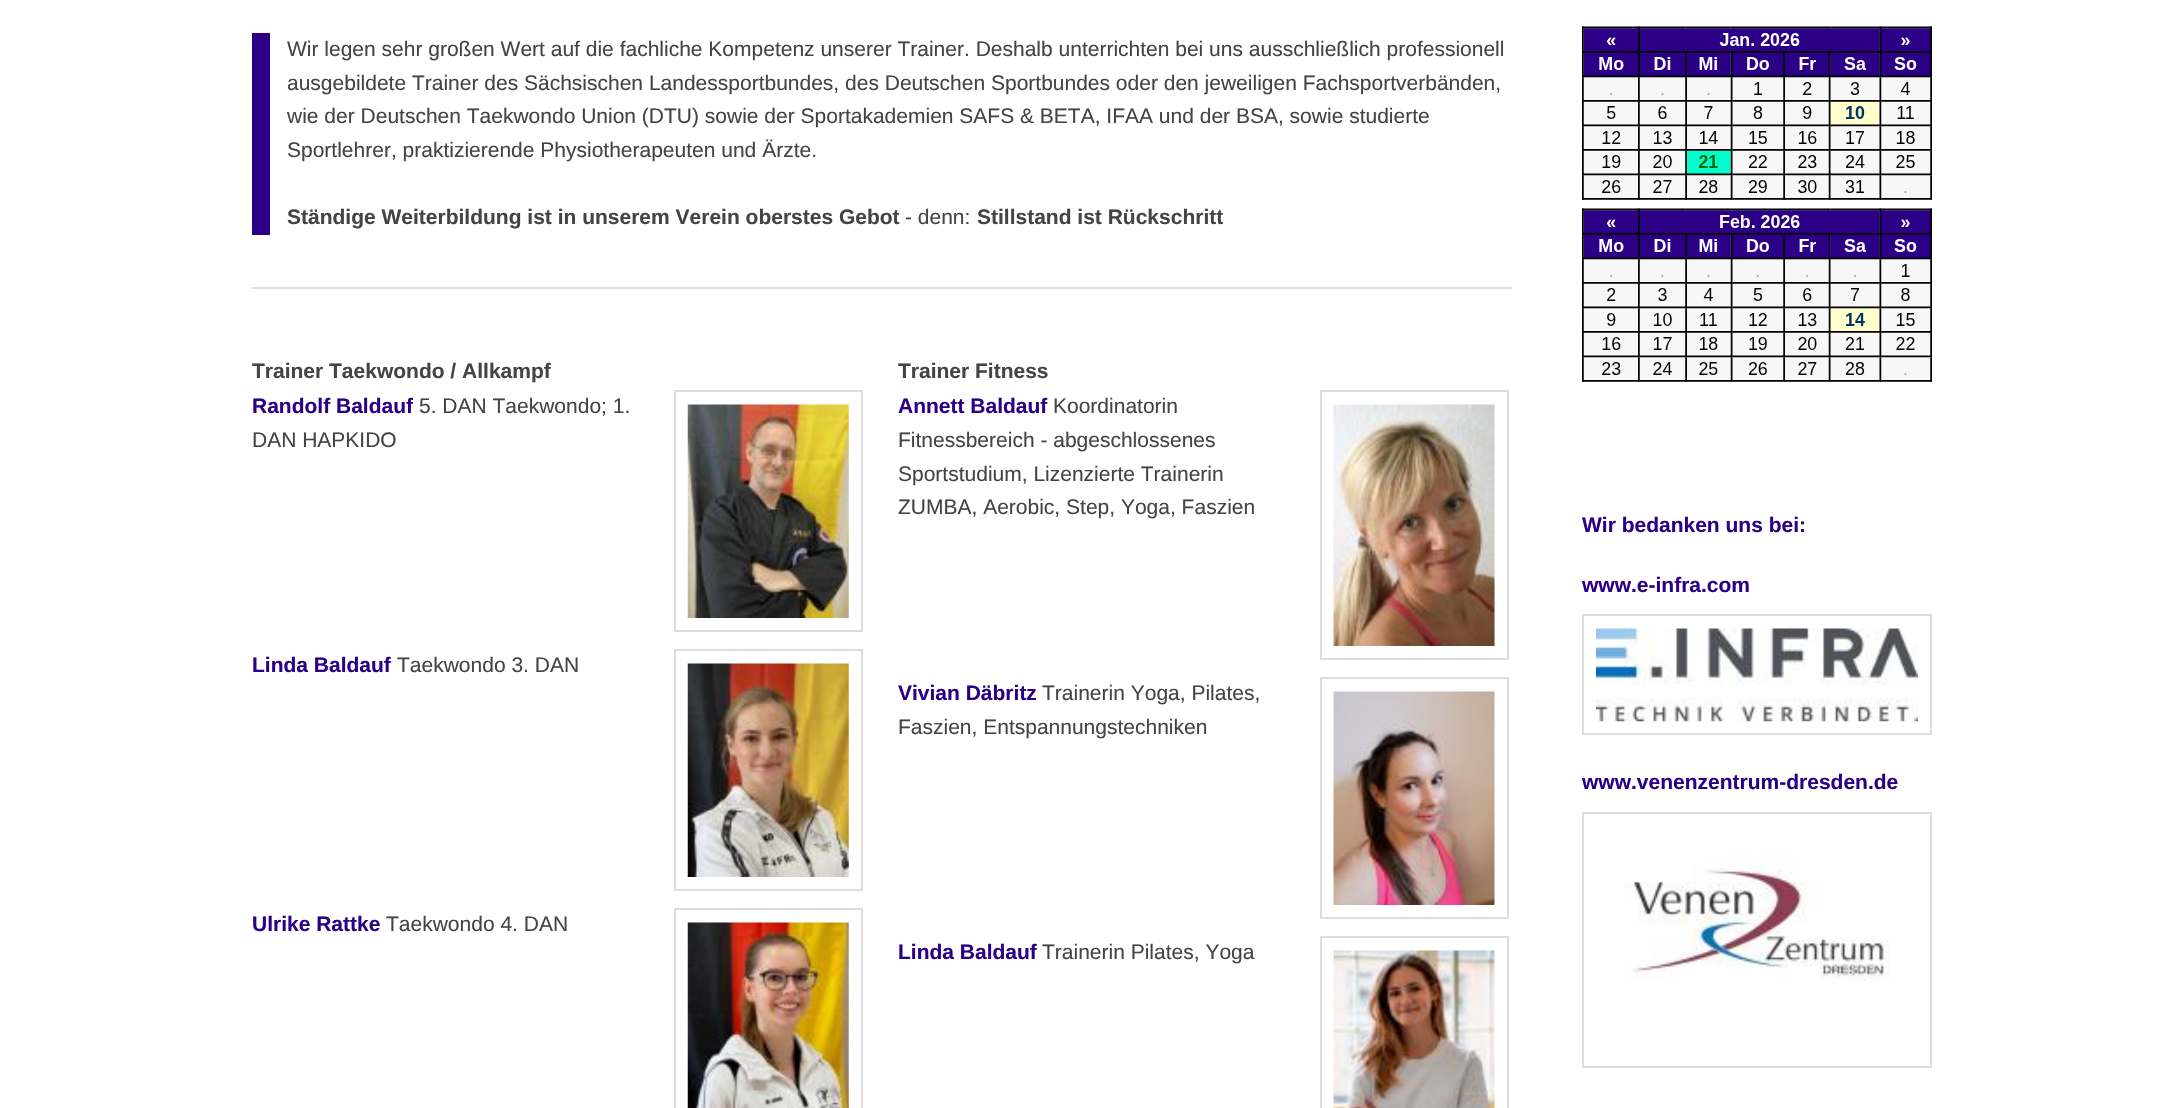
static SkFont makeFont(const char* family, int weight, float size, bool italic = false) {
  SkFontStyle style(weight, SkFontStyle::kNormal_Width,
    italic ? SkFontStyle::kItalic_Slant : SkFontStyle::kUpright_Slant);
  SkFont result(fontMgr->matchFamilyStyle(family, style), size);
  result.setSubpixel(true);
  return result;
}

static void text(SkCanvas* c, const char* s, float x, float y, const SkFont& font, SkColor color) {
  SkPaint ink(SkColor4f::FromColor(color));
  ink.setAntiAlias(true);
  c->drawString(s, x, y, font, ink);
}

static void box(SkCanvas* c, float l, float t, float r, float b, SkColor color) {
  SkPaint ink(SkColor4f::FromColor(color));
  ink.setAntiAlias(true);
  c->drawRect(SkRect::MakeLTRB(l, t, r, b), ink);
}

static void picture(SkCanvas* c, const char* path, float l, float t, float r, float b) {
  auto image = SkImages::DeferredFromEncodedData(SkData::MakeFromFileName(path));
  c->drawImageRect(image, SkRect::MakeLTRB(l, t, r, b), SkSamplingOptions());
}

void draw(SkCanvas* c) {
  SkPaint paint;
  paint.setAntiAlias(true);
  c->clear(0xffffffff);
  box(c, 252, 33, 270, 235, 0xff2b0087);
  SkFont face1 = makeFont("Liberation Sans", 400, 21);
  text(c, "Wir legen sehr großen Wert auf die fachliche Kompetenz unserer Trainer. Deshalb unterrichten bei uns ausschließlich professionell", 287, 56, face1, 0xff444444);
  text(c, "ausgebildete Trainer des Sächsischen Landessportbundes, des Deutschen Sportbundes oder den jeweiligen Fachsportverbänden,", 287, 90, face1, 0xff444444);
  text(c, "wie der Deutschen Taekwondo Union (DTU) sowie der Sportakademien SAFS & BETA, IFAA und der BSA, sowie studierte", 287, 123, face1, 0xff444444);
  text(c, "Sportlehrer, praktizierende Physiotherapeuten und Ärzte.", 287, 157, face1, 0xff444444);
  SkFont face2 = makeFont("Liberation Sans", 700, 21);
  text(c, "Ständige Weiterbildung ist in unserem Verein oberstes Gebot", 287, 224, face2, 0xff444444);
  text(c, "- denn:", 905, 224, face1, 0xff444444);
  text(c, "Stillstand ist Rückschritt", 977, 224, face2, 0xff444444);
  box(c, 252, 287, 1512, 289, 0xffdddddd);
  text(c, "Trainer Taekwondo / Allkampf", 252, 378, face2, 0xff444444);
  text(c, "Randolf Baldauf", 252, 413, face2, 0xff2b0087);
  text(c, "5. DAN Taekwondo; 1.", 419, 413, face1, 0xff444444);
  text(c, "DAN HAPKIDO", 252, 447, face1, 0xff444444);
  paint.setStyle(SkPaint::kStroke_Style);
  paint.setStrokeWidth(2);
  paint.setColor(0xffdddddd);
  c->drawRect(SkRect::MakeLTRB(675, 391, 862, 631), paint);
  picture(c, "img_01.png", 687, 404, 849, 618);
  text(c, "Linda Baldauf", 252, 672, face2, 0xff2b0087);
  text(c, "Taekwondo 3. DAN", 397, 672, face1, 0xff444444);
  c->drawRect(SkRect::MakeLTRB(675, 650, 862, 890), paint);
  picture(c, "img_02.png", 687, 663, 849, 877);
  text(c, "Ulrike Rattke", 252, 931, face2, 0xff2b0087);
  text(c, "Taekwondo 4. DAN", 386, 931, face1, 0xff444444);
  c->drawRect(SkRect::MakeLTRB(675, 909, 862, 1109), paint);
  picture(c, "img_03.png", 687, 922, 849, 1108);
  text(c, "Trainer Fitness", 898, 378, face2, 0xff444444);
  text(c, "Annett Baldauf", 898, 413, face2, 0xff2b0087);
  text(c, "Koordinatorin", 1053, 413, face1, 0xff444444);
  text(c, "Fitnessbereich - abgeschlossenes", 898, 447, face1, 0xff444444);
  text(c, "Sportstudium, Lizenzierte Trainerin", 898, 481, face1, 0xff444444);
  text(c, "ZUMBA, Aerobic, Step, Yoga, Faszien", 898, 514, face1, 0xff444444);
  c->drawRect(SkRect::MakeLTRB(1321, 391, 1508, 659), paint);
  picture(c, "img_04.png", 1333, 404, 1495, 646);
  text(c, "Vivian Däbritz", 898, 700, face2, 0xff2b0087);
  text(c, "Trainerin Yoga, Pilates,", 1042, 700, face1, 0xff444444);
  text(c, "Faszien, Entspannungstechniken", 898, 734, face1, 0xff444444);
  c->drawRect(SkRect::MakeLTRB(1321, 678, 1508, 918), paint);
  picture(c, "img_05.png", 1333, 691, 1495, 905);
  text(c, "Linda Baldauf", 898, 959, face2, 0xff2b0087);
  text(c, "Trainerin Pilates, Yoga", 1042, 959, face1, 0xff444444);
  c->drawRect(SkRect::MakeLTRB(1321, 937, 1508, 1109), paint);
  picture(c, "img_06.png", 1333, 950, 1495, 1108);
  picture(c, "img_07.png", 1582, 26, 1932, 382);
  text(c, "Wir bedanken uns bei:", 1582, 532, face2, 0xff2b0087);
  text(c, "www.e-infra.com", 1582, 592, face2, 0xff2b0087);
  c->drawRect(SkRect::MakeLTRB(1583, 615, 1931, 734), paint);
  picture(c, "img_08.png", 1596, 628, 1918, 722);
  text(c, "www.venenzentrum-dresden.de", 1582, 789, face2, 0xff2b0087);
  c->drawRect(SkRect::MakeLTRB(1583, 813, 1931, 1067), paint);
  picture(c, "img_09.png", 1625, 854, 1890, 981);
}
